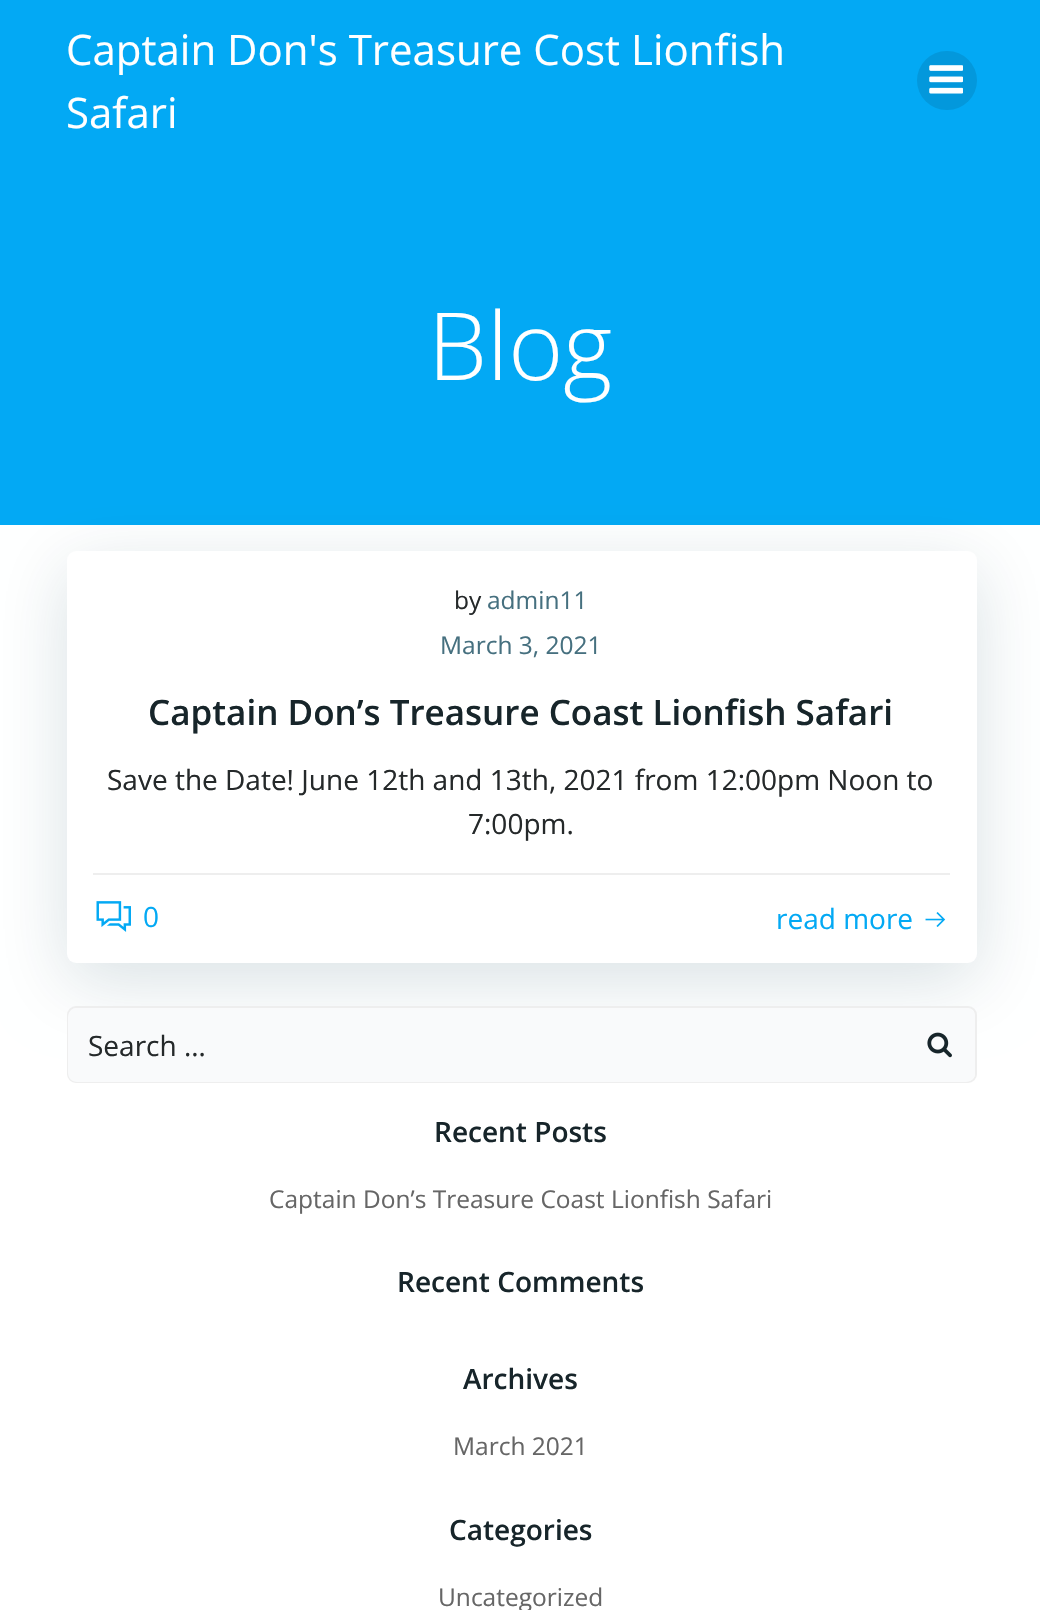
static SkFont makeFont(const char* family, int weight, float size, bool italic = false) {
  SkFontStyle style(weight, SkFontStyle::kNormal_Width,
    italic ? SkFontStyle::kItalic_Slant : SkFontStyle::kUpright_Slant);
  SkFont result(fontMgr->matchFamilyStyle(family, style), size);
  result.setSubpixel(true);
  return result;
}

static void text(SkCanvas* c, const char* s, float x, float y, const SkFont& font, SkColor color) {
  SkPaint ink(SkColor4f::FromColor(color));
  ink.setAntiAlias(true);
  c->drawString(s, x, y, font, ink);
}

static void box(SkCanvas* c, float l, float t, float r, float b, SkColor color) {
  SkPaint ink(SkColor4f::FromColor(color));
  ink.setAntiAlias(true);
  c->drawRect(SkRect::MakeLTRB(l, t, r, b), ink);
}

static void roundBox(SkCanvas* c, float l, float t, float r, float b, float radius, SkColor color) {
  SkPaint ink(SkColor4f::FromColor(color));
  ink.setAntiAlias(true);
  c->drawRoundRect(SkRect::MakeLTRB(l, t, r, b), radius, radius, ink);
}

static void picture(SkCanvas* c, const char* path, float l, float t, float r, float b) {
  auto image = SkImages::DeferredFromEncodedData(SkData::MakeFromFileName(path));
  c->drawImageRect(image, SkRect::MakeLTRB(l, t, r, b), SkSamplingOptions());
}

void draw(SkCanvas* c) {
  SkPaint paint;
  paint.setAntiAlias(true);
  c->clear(0xffffffff);
  box(c, 0, 0, 1040, 525, 0xff03a9f4);
  SkFont face1 = makeFont("Open Sans", 400, 42);
  text(c, "Captain Don's Treasure Cost Lionfish", 66, 65, face1, 0xffffffff);
  text(c, "Safari", 66, 128, face1, 0xffffffff);
  roundBox(c, 917, 51, 977, 110, 29.5f, 0xff0398dc);
  picture(c, "img_01.png", 929, 65, 963, 94);
  SkFont face2 = makeFont("Open Sans", 300, 94);
  text(c, "Blog", 428, 380, face2, 0xffffffff);
  paint.setColor(0x2601334a);
  paint.setMaskFilter(SkMaskFilter::MakeBlur(kNormal_SkBlurStyle, 35));
  c->drawRoundRect(SkRect::MakeLTRB(67, 569, 977, 980), 9, 9, paint);
  paint.setMaskFilter(nullptr);
  roundBox(c, 67, 551, 977, 963, 9, 0xffffffff);
  box(c, 93, 873, 950, 875, 0xffeeeeee);
  SkFont face3 = makeFont("Open Sans", 400, 24.5f);
  text(c, "by", 454, 609, face3, 0xff25292a);
  text(c, "admin11", 487, 609, face3, 0xff46707f);
  text(c, "March 3, 2021", 440, 654, face3, 0xff46707f);
  SkFont face4 = makeFont("Open Sans", 600, 35);
  text(c, "Captain Don’s Treasure Coast Lionfish Safari", 148, 725, face4, 0xff17252a);
  SkFont face5 = makeFont("Open Sans", 400, 28);
  text(c, "Save the Date! June 12th and 13th, 2021 from 12:00pm Noon to", 107, 790, face5, 0xff25292a);
  text(c, "7:00pm.", 468, 834, face5, 0xff25292a);
  picture(c, "img_02.png", 96, 901, 131, 932);
  text(c, "0", 143, 927, face5, 0xff03a9f4);
  text(c, "read more", 776, 929, face5, 0xff03a9f4);
  picture(c, "img_03.png", 925, 912, 946, 927);
  paint.setStyle(SkPaint::kStroke_Style);
  paint.setStrokeWidth(2);
  paint.setColor(0xffeeeeee);
  c->drawRoundRect(SkRect::MakeLTRB(68, 1007, 976, 1082), 8, 8, paint);
  paint.setStyle(SkPaint::kFill_Style);
  paint.setColor(0xfff9fafb);
  c->drawPath(SkPathBuilder().moveTo(77, 1008).lineTo(905, 1008).lineTo(905, 1082).lineTo(77, 1082).cubicTo(72, 1082, 68, 1078, 68, 1073).lineTo(68, 1017).cubicTo(68, 1012, 72, 1008, 77, 1008).close().detach(), paint);
  text(c, "Search …", 88, 1056, face5, 0xff25292a);
  c->drawPath(SkPathBuilder().moveTo(905, 1008).lineTo(966, 1008).cubicTo(971, 1008, 975, 1012, 975, 1017).lineTo(975, 1073).cubicTo(975, 1078, 971, 1082, 966, 1082).lineTo(905, 1082).close().detach(), paint);
  picture(c, "img_04.png", 927, 1032, 952, 1058);
  SkFont face6 = makeFont("Open Sans", 600, 28);
  text(c, "Recent Posts", 434, 1142, face6, 0xff17252a);
  text(c, "Captain Don’s Treasure Coast Lionfish Safari", 269, 1208, face3, 0xff666666);
  text(c, "Recent Comments", 397, 1292, face6, 0xff17252a);
  text(c, "Archives", 463, 1389, face6, 0xff17252a);
  text(c, "March 2021", 453, 1455, face3, 0xff666666);
  text(c, "Categories", 449, 1540, face6, 0xff17252a);
  text(c, "Uncategorized", 438, 1606, face3, 0xff666666);
}
